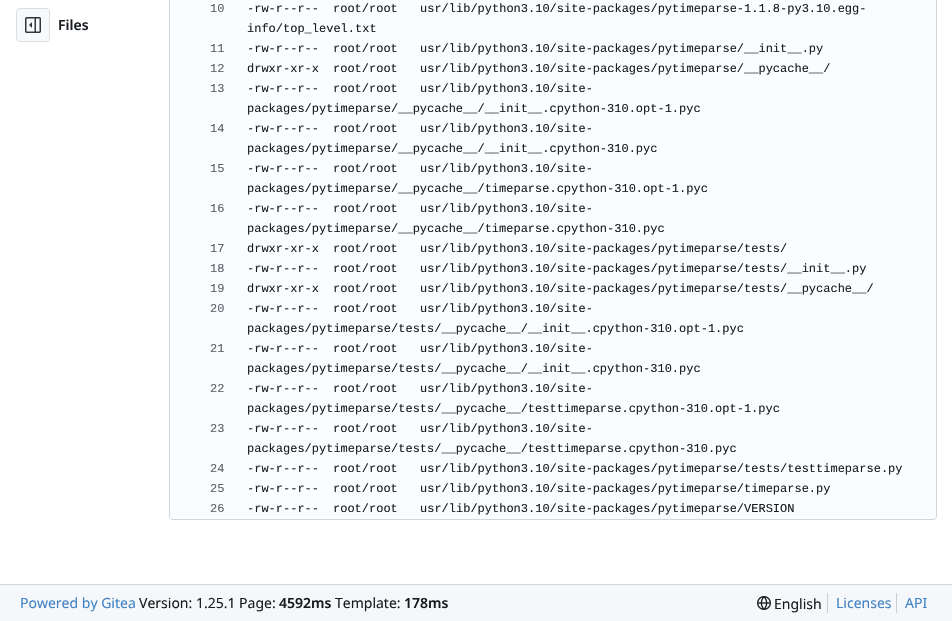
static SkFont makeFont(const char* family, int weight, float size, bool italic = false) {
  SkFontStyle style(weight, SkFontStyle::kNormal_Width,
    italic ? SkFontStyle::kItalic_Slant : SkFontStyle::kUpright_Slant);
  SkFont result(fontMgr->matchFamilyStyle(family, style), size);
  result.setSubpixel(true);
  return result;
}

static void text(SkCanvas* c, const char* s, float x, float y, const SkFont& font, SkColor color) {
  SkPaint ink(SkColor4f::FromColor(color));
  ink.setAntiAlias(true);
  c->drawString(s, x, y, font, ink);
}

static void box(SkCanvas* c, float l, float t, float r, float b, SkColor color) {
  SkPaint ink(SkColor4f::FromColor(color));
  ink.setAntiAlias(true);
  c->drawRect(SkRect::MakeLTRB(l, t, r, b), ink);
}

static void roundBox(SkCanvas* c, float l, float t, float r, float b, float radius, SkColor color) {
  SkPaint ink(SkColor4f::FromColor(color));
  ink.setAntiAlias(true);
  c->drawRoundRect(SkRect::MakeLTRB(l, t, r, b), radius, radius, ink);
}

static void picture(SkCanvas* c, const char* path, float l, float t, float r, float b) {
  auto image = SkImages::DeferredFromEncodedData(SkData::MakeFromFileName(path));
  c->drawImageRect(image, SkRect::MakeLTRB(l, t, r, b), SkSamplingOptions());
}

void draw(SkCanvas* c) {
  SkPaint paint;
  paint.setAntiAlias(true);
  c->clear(0xffffffff);
  paint.setColor(0xfff8f9fb);
  c->drawRoundRect(SkRect::MakeLTRB(16.5f, 8.5f, 49.5f, 41.5f), 3.5f, 3.5f, paint);
  paint.setStyle(SkPaint::kStroke_Style);
  paint.setStrokeWidth(1);
  paint.setColor(0xffdcdde1);
  c->drawRoundRect(SkRect::MakeLTRB(16.5f, 8.5f, 49.5f, 41.5f), 3.5f, 3.5f, paint);
  picture(c, "img_01.png", 25, 17, 41, 33);
  SkFont face1 = makeFont("Noto Sans", 600, 14);
  text(c, "Files", 58, 30, face1, 0xff181c21);
  paint.setStyle(SkPaint::kFill_Style);
  paint.setColor(0xffd0d7de);
  c->drawPath(SkPathBuilder(SkPathFillType::kEvenOdd).moveTo(169, -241).lineTo(937, -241).lineTo(937, 516).cubicTo(937, 518, 935, 520, 933, 520).lineTo(173, 520).cubicTo(171, 520, 169, 518, 169, 516).close().moveTo(170, -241).lineTo(936, -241).lineTo(936, 516).cubicTo(936, 518, 935, 519, 933, 519).lineTo(173, 519).cubicTo(171, 519, 170, 518, 170, 516).close().detach(), paint);
  roundBox(c, 170, -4, 936, 519, 4, 0xfffafdff);
  SkFont face2 = makeFont("Liberation Mono", 400, 12);
  text(c, "10", 210, 12, face2, 0xff5b6167);
  text(c, "-rw-r--r--", 247, 12, face2, 0xff181c21);
  text(c, "root/root", 333, 12, face2, 0xff181c21);
  text(c, "usr/lib/python3.10/site-packages/pytimeparse-1.1.8-py3.10.egg-", 420, 12, face2, 0xff181c21);
  text(c, "info/top_level.txt", 247, 32, face2, 0xff181c21);
  text(c, "11", 210, 52, face2, 0xff5b6167);
  text(c, "-rw-r--r--", 247, 52, face2, 0xff181c21);
  text(c, "root/root", 333, 52, face2, 0xff181c21);
  text(c, "usr/lib/python3.10/site-packages/pytimeparse/__init__.py", 420, 52, face2, 0xff181c21);
  text(c, "12", 210, 72, face2, 0xff5b6167);
  text(c, "drwxr-xr-x", 247, 72, face2, 0xff181c21);
  text(c, "root/root", 333, 72, face2, 0xff181c21);
  text(c, "usr/lib/python3.10/site-packages/pytimeparse/__pycache__/", 420, 72, face2, 0xff181c21);
  text(c, "13", 210, 92, face2, 0xff5b6167);
  text(c, "-rw-r--r--", 247, 92, face2, 0xff181c21);
  text(c, "root/root", 333, 92, face2, 0xff181c21);
  text(c, "usr/lib/python3.10/site-", 420, 92, face2, 0xff181c21);
  text(c, "packages/pytimeparse/__pycache__/__init__.cpython-310.opt-1.pyc", 247, 112, face2, 0xff181c21);
  text(c, "14", 210, 132, face2, 0xff5b6167);
  text(c, "-rw-r--r--", 247, 132, face2, 0xff181c21);
  text(c, "root/root", 333, 132, face2, 0xff181c21);
  text(c, "usr/lib/python3.10/site-", 420, 132, face2, 0xff181c21);
  text(c, "packages/pytimeparse/__pycache__/__init__.cpython-310.pyc", 247, 152, face2, 0xff181c21);
  text(c, "15", 210, 172, face2, 0xff5b6167);
  text(c, "-rw-r--r--", 247, 172, face2, 0xff181c21);
  text(c, "root/root", 333, 172, face2, 0xff181c21);
  text(c, "usr/lib/python3.10/site-", 420, 172, face2, 0xff181c21);
  text(c, "packages/pytimeparse/__pycache__/timeparse.cpython-310.opt-1.pyc", 247, 192, face2, 0xff181c21);
  text(c, "16", 210, 212, face2, 0xff5b6167);
  text(c, "-rw-r--r--", 247, 212, face2, 0xff181c21);
  text(c, "root/root", 333, 212, face2, 0xff181c21);
  text(c, "usr/lib/python3.10/site-", 420, 212, face2, 0xff181c21);
  text(c, "packages/pytimeparse/__pycache__/timeparse.cpython-310.pyc", 247, 232, face2, 0xff181c21);
  text(c, "17", 210, 252, face2, 0xff5b6167);
  text(c, "drwxr-xr-x", 247, 252, face2, 0xff181c21);
  text(c, "root/root", 333, 252, face2, 0xff181c21);
  text(c, "usr/lib/python3.10/site-packages/pytimeparse/tests/", 420, 252, face2, 0xff181c21);
  text(c, "18", 210, 272, face2, 0xff5b6167);
  text(c, "-rw-r--r--", 247, 272, face2, 0xff181c21);
  text(c, "root/root", 333, 272, face2, 0xff181c21);
  text(c, "usr/lib/python3.10/site-packages/pytimeparse/tests/__init__.py", 420, 272, face2, 0xff181c21);
  text(c, "19", 210, 292, face2, 0xff5b6167);
  text(c, "drwxr-xr-x", 247, 292, face2, 0xff181c21);
  text(c, "root/root", 333, 292, face2, 0xff181c21);
  text(c, "usr/lib/python3.10/site-packages/pytimeparse/tests/__pycache__/", 420, 292, face2, 0xff181c21);
  text(c, "20", 210, 312, face2, 0xff5b6167);
  text(c, "-rw-r--r--", 247, 312, face2, 0xff181c21);
  text(c, "root/root", 333, 312, face2, 0xff181c21);
  text(c, "usr/lib/python3.10/site-", 420, 312, face2, 0xff181c21);
  text(c, "packages/pytimeparse/tests/__pycache__/__init__.cpython-310.opt-1.pyc", 247, 332, face2, 0xff181c21);
  text(c, "21", 210, 352, face2, 0xff5b6167);
  text(c, "-rw-r--r--", 247, 352, face2, 0xff181c21);
  text(c, "root/root", 333, 352, face2, 0xff181c21);
  text(c, "usr/lib/python3.10/site-", 420, 352, face2, 0xff181c21);
  text(c, "packages/pytimeparse/tests/__pycache__/__init__.cpython-310.pyc", 247, 372, face2, 0xff181c21);
  text(c, "22", 210, 392, face2, 0xff5b6167);
  text(c, "-rw-r--r--", 247, 392, face2, 0xff181c21);
  text(c, "root/root", 333, 392, face2, 0xff181c21);
  text(c, "usr/lib/python3.10/site-", 420, 392, face2, 0xff181c21);
  text(c, "packages/pytimeparse/tests/__pycache__/testtimeparse.cpython-310.opt-1.pyc", 247, 412, face2, 0xff181c21);
  text(c, "23", 210, 432, face2, 0xff5b6167);
  text(c, "-rw-r--r--", 247, 432, face2, 0xff181c21);
  text(c, "root/root", 333, 432, face2, 0xff181c21);
  text(c, "usr/lib/python3.10/site-", 420, 432, face2, 0xff181c21);
  text(c, "packages/pytimeparse/tests/__pycache__/testtimeparse.cpython-310.pyc", 247, 452, face2, 0xff181c21);
  text(c, "24", 210, 472, face2, 0xff5b6167);
  text(c, "-rw-r--r--", 247, 472, face2, 0xff181c21);
  text(c, "root/root", 333, 472, face2, 0xff181c21);
  text(c, "usr/lib/python3.10/site-packages/pytimeparse/tests/testtimeparse.py", 420, 472, face2, 0xff181c21);
  text(c, "25", 210, 492, face2, 0xff5b6167);
  text(c, "-rw-r--r--", 247, 492, face2, 0xff181c21);
  text(c, "root/root", 333, 492, face2, 0xff181c21);
  text(c, "usr/lib/python3.10/site-packages/pytimeparse/timeparse.py", 420, 492, face2, 0xff181c21);
  text(c, "26", 210, 512, face2, 0xff5b6167);
  text(c, "-rw-r--r--", 247, 512, face2, 0xff181c21);
  text(c, "root/root", 333, 512, face2, 0xff181c21);
  text(c, "usr/lib/python3.10/site-packages/pytimeparse/VERSION", 420, 512, face2, 0xff181c21);
  box(c, 0, 585, 952, 621, 0xfff6f7fa);
  box(c, 0, 584, 952, 585, 0xffd0d7de);
  SkFont face3 = makeFont("Noto Sans", 400, 14);
  text(c, "Powered by Gitea", 20, 608, face3, 0xff4183c4);
  text(c, "Version: 1.25.1 Page:", 139, 608, face3, 0xff181c21);
  text(c, "4592ms", 279, 608, face1, 0xff181c21);
  text(c, "Template:", 335, 608, face3, 0xff181c21);
  text(c, "178ms", 404, 608, face1, 0xff181c21);
  picture(c, "img_02.png", 757, 596, 771, 610);
  text(c, "English", 774, 609, face3, 0xff181c21);
  box(c, 827, 593, 828, 613, 0xffc7ced5);
  text(c, "Licenses", 836, 608, face3, 0xff4183c4);
  box(c, 896, 593, 897, 613, 0xffc7ced5);
  text(c, "API", 905, 608, face3, 0xff4183c4);
}
